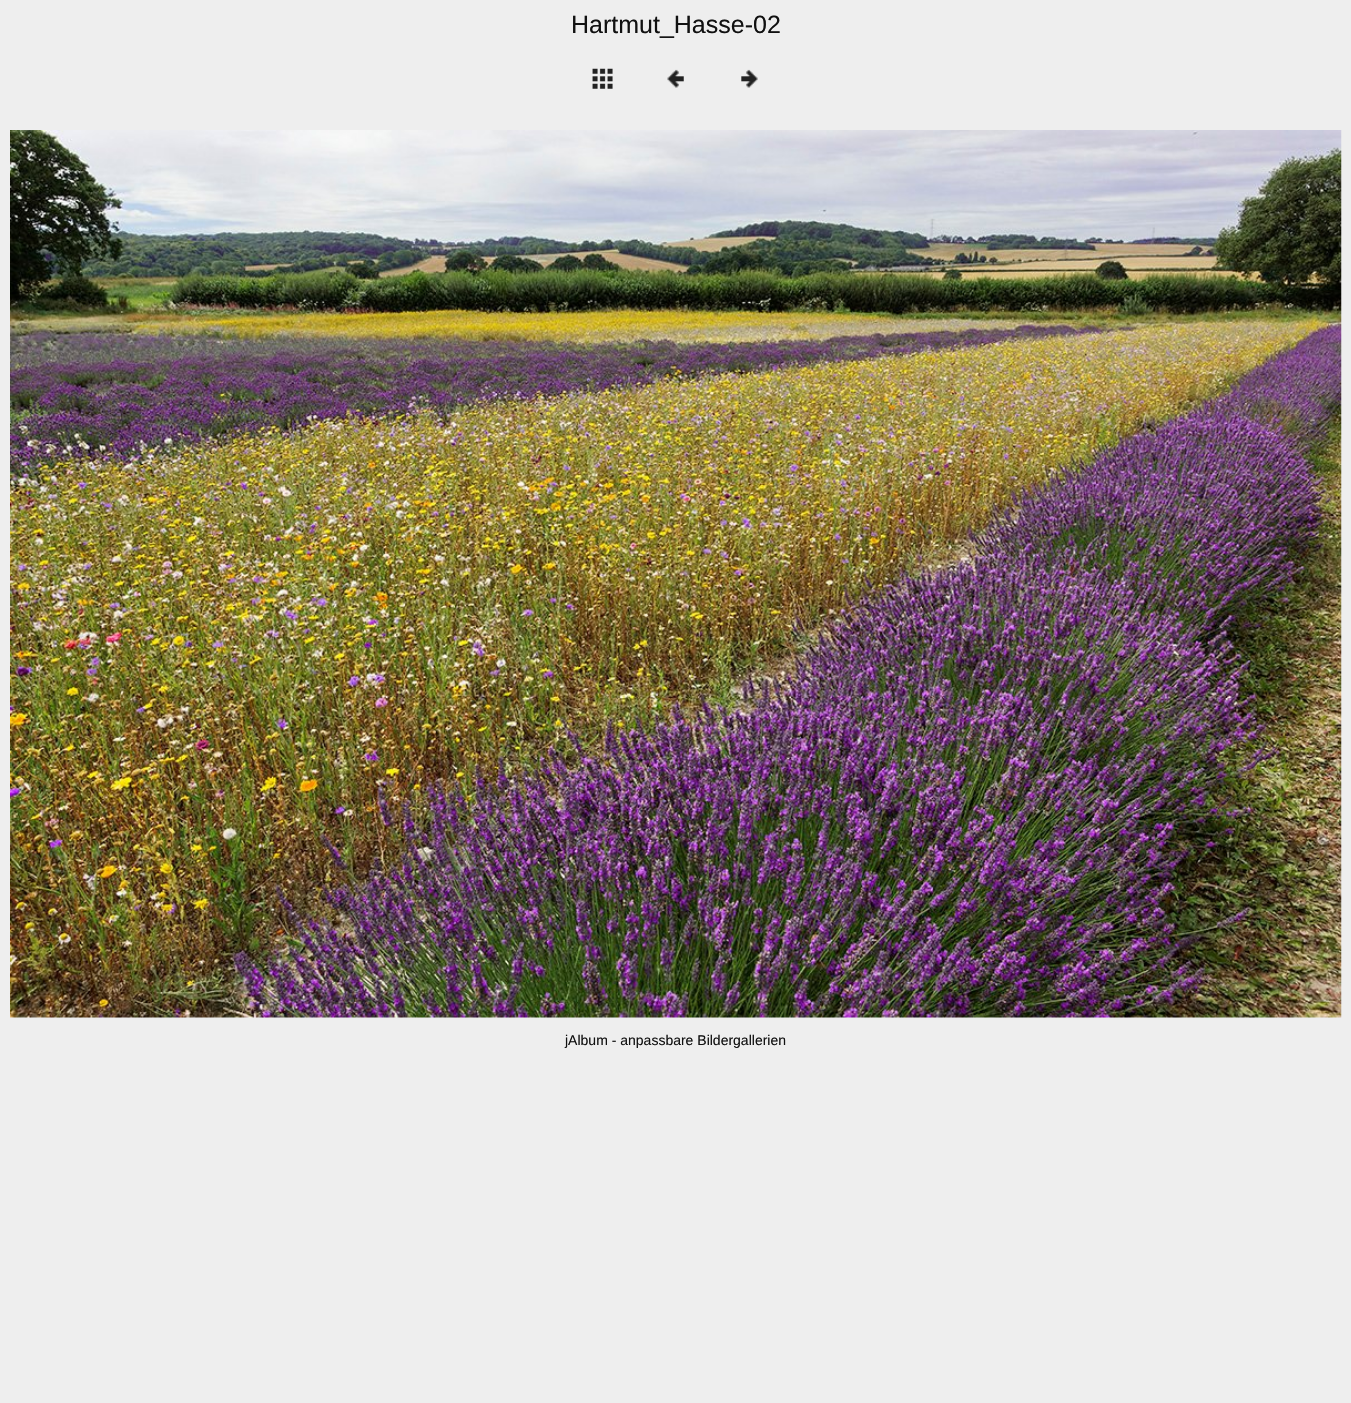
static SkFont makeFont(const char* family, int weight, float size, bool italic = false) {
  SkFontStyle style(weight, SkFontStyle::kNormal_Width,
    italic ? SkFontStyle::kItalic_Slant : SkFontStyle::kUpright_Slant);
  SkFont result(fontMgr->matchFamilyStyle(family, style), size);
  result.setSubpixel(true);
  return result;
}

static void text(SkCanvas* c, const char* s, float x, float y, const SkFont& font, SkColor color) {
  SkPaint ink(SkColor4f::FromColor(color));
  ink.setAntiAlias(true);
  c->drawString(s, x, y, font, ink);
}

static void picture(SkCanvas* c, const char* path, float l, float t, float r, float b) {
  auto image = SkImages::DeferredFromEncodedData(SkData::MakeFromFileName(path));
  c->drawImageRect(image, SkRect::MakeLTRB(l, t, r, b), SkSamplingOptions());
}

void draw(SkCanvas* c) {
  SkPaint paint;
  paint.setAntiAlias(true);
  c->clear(0xffeeeeee);
  SkFont face1 = makeFont("Liberation Sans", 400, 25);
  text(c, "Hartmut_Hasse-02", 571, 33, face1, 0xff111111);
  picture(c, "img_01.png", 592, 68, 613, 89);
  picture(c, "img_02.png", 667, 69, 684, 88);
  picture(c, "img_03.png", 741, 69, 758, 88);
  picture(c, "img_04.png", 10, 130, 1342, 1018);
  SkFont face2 = makeFont("Liberation Sans", 400, 14);
  text(c, "jAlbum - anpassbare Bildergallerien", 565, 1045, face2, 0xff111111);
}
